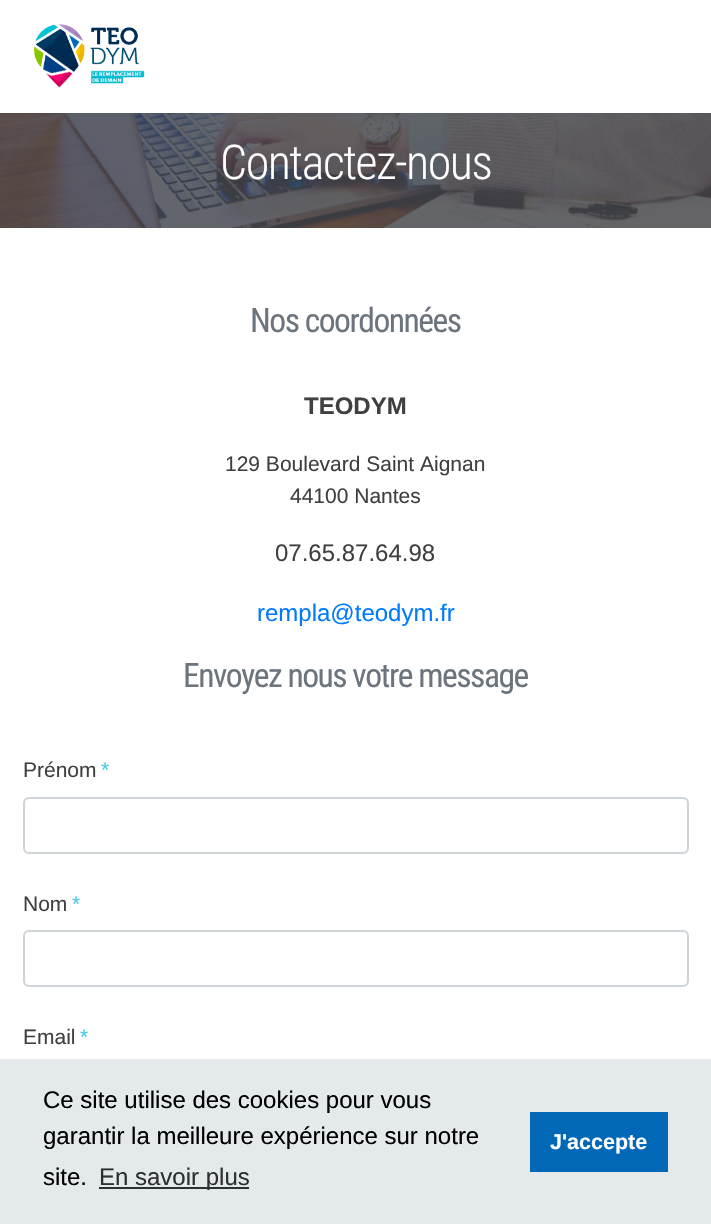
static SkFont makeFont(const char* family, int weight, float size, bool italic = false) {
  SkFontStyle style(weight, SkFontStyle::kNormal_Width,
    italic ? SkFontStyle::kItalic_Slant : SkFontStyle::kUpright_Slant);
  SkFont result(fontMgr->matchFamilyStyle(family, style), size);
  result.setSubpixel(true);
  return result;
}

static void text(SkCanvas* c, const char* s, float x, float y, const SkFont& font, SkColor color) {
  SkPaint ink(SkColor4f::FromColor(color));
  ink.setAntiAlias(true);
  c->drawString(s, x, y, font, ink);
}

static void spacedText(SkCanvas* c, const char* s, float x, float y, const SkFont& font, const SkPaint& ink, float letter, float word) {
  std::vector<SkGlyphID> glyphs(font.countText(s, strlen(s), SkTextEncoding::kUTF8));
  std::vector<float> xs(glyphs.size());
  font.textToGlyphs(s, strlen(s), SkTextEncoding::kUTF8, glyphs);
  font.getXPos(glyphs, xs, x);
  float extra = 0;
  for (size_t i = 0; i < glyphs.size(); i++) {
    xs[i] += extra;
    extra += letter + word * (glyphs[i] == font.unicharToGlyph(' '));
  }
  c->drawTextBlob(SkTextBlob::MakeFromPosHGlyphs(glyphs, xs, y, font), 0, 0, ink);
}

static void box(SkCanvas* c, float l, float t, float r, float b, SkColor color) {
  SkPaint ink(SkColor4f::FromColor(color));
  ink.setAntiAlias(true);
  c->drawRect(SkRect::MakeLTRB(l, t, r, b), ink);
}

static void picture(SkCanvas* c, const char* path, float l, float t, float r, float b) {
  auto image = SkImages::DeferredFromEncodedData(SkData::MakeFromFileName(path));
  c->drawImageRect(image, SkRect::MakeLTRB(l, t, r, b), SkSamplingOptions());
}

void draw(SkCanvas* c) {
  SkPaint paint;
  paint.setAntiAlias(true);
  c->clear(0xffffffff);
  picture(c, "img_02.png", 0, 113, 711, 228);
  paint.setColor(0x0d061d2e);
  paint.setMaskFilter(SkMaskFilter::MakeBlur(kNormal_SkBlurStyle, 2));
  c->drawRect(SkRect::MakeLTRB(0, 2, 711, 114), paint);
  paint.setMaskFilter(nullptr);
  box(c, 0, 0, 711, 113, 0xffffffff);
  picture(c, "img_01.png", 34, 24, 145, 88);
  SkFont face1 = makeFont("Roboto Condensed", 300, 48);
  paint.setColor(0xffffffff);
  spacedText(c, "Contactez-nous", 220, 179, face1, paint, -1.5f, 0);
  SkFont face2 = makeFont("Roboto Condensed", 400, 33.6f);
  paint.setColor(0xff6c757d);
  spacedText(c, "Nos coordonnées", 250, 332, face2, paint, -1.5f, 0);
  SkFont face3 = makeFont("Liberation Sans", 700, 24);
  text(c, "TEODYM", 304, 414, face3, 0xff404040);
  SkFont face4 = makeFont("Liberation Sans", 400, 21);
  text(c, "129 Boulevard Saint Aignan", 225, 471, face4, 0xff404040);
  text(c, "44100 Nantes", 290, 503, face4, 0xff404040);
  SkFont face5 = makeFont("Liberation Sans", 400, 24);
  text(c, "07.65.87.64.98", 275, 561, face5, 0xff404040);
  text(c, "rempla@teodym.fr", 257, 621, face5, 0xff007bff);
  spacedText(c, "Envoyez nous votre message", 183, 687, face2, paint, -1.5f, 0);
  text(c, "Prénom", 23, 777, face4, 0xff404040);
  text(c, "*", 101, 777, face4, 0xff44cde6);
  paint.setStyle(SkPaint::kStroke_Style);
  paint.setStrokeWidth(2);
  paint.setColor(0xffced4da);
  c->drawRoundRect(SkRect::MakeLTRB(24, 798, 688, 853), 5, 5, paint);
  text(c, "Nom", 23, 911, face4, 0xff404040);
  text(c, "*", 72, 911, face4, 0xff44cde6);
  c->drawRoundRect(SkRect::MakeLTRB(24, 931, 688, 986), 5, 5, paint);
  text(c, "Email", 23, 1044, face4, 0xff404040);
  text(c, "*", 80, 1044, face4, 0xff44cde6);
  box(c, 0, 1059, 711, 1224, 0xffe4e9ec);
  text(c, "Ce site utilise des cookies pour vous", 43, 1108, face5, 0xff000000);
  text(c, "garantir la meilleure expérience sur notre", 43, 1144, face5, 0xff000000);
  text(c, "site.", 43, 1185, face5, 0xff000000);
  box(c, 99, 1187, 249, 1189, 0xff2e2f2f);
  text(c, "En savoir plus", 99, 1185, face5, 0xff2e2f2f);
  box(c, 530, 1112, 668, 1172, 0xff0068b6);
  SkFont face6 = makeFont("Liberation Sans", 700, 21.5f);
  text(c, "J'accepte", 550, 1149, face6, 0xffffffff);
}
